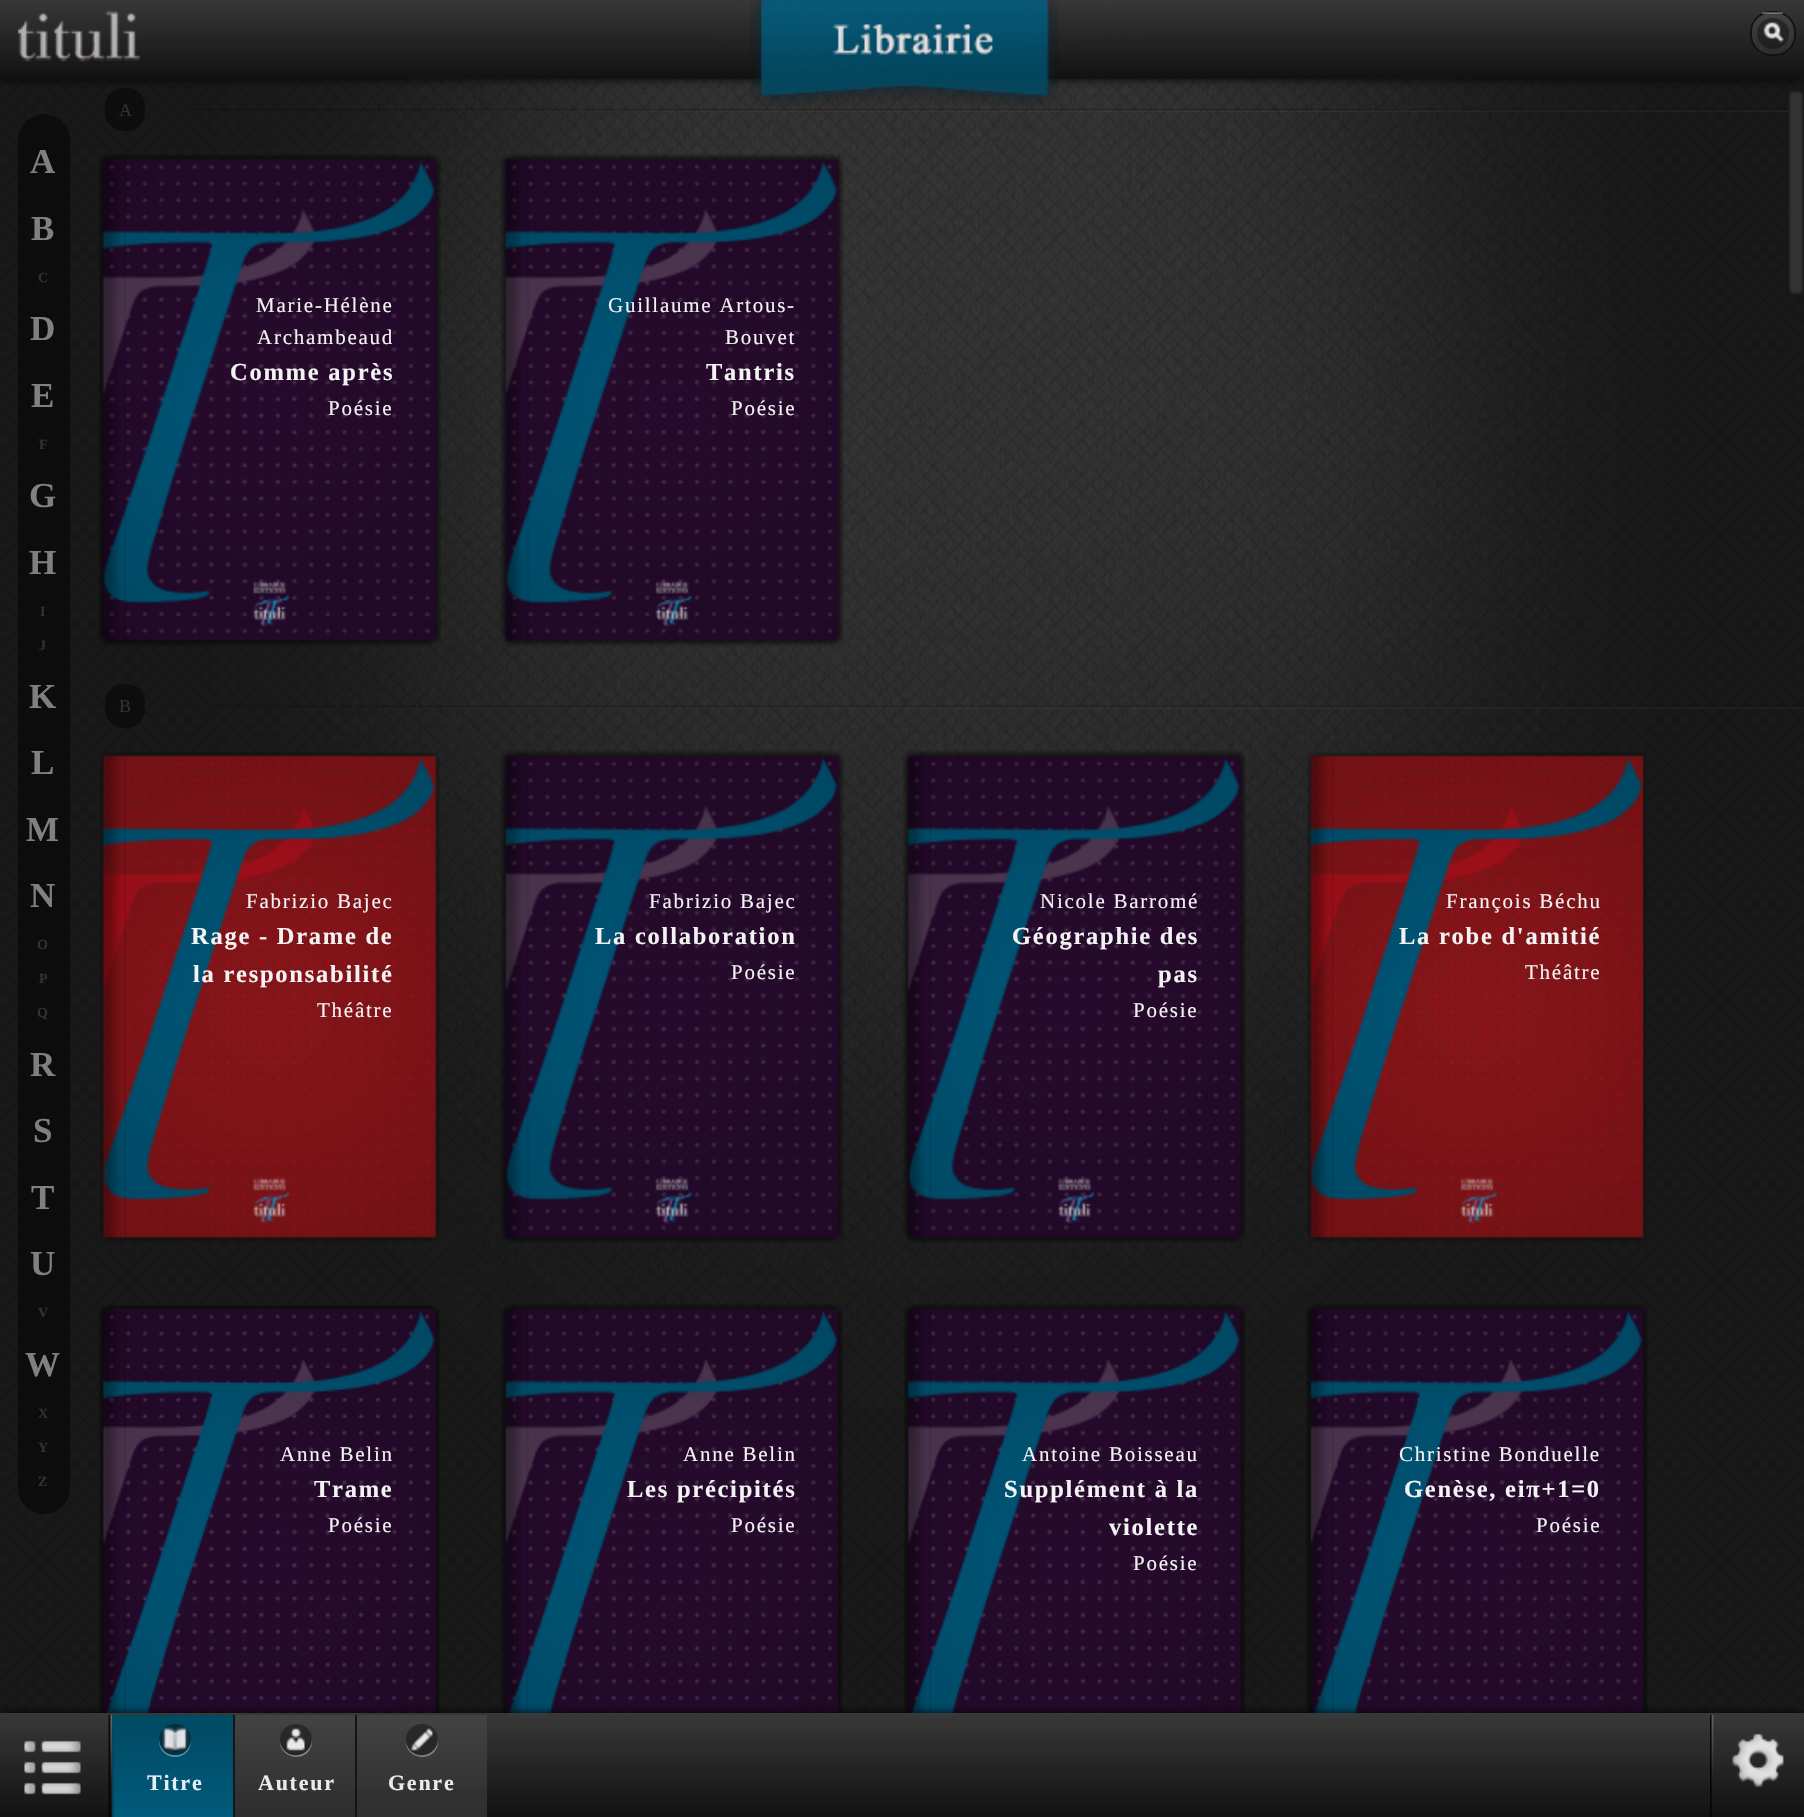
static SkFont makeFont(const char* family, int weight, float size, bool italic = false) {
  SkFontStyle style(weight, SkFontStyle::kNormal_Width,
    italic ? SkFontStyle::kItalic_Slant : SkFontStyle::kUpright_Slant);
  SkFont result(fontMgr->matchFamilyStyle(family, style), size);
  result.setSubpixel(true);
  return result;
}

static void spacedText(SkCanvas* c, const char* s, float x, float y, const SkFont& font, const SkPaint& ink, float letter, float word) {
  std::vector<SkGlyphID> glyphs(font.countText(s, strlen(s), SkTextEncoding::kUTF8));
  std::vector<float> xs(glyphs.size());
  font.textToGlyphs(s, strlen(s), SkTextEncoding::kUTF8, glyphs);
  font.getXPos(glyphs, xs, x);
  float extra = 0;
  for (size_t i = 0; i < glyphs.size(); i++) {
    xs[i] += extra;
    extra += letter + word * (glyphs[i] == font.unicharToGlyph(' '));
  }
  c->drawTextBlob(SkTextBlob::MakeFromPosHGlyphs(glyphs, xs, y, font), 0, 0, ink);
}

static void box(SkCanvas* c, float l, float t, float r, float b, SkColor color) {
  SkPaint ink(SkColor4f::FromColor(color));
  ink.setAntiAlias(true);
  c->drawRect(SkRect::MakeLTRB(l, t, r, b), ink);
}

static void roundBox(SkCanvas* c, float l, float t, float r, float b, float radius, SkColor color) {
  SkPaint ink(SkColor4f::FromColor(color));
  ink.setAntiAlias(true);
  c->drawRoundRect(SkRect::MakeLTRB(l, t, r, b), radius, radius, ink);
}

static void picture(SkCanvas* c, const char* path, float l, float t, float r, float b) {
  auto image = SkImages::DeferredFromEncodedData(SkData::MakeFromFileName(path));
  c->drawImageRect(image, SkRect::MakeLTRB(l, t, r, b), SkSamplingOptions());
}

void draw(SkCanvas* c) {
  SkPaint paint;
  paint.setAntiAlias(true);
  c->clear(0xff1b1b1b);
  picture(c, "img_01.png", 0, 0, 1804, 1816);
  roundBox(c, 105, 88, 145, 131, 18, 0x80010101);
  picture(c, "img_05.png", 193, 108, 1804, 112);
  paint.setColor(0xff333333);
  c->drawRoundRect(SkRect::MakeLTRB(1790, 92, 1802, 293), 4, 4, paint);
  paint.setStyle(SkPaint::kStroke_Style);
  paint.setStrokeWidth(2);
  paint.setColor(0xff282828);
  c->drawRoundRect(SkRect::MakeLTRB(1790, 92, 1802, 293), 4, 4, paint);
  c->save();
  c->clipPath(SkPathBuilder(SkPathFillType::kEvenOdd).moveTo(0, 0).lineTo(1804, 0).lineTo(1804, 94).lineTo(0, 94).close().moveTo(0, -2).lineTo(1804, -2).lineTo(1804, 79).lineTo(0, 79).close().detach(), true);
  paint.setStyle(SkPaint::kFill_Style);
  paint.setColor(0xe6000000);
  paint.setMaskFilter(SkMaskFilter::MakeBlur(kNormal_SkBlurStyle, 4.5f));
  c->drawRect(SkRect::MakeLTRB(0, -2, 1804, 79), paint);
  paint.setMaskFilter(nullptr);
  c->restore();
  box(c, 0, 0, 1804, 79, 0xe6111111);
  {
    const SkColor colors[] = {0xe63c3c3c, 0xe6111111};
    const float stops[] = {0, 1};
    const SkPoint ends[] = {{902, -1.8f}, {902, 79}};
    paint.setShader(SkGradientShader::MakeLinear(ends, colors, stops, 2, SkTileMode::kClamp));
    paint.setAlpha(255);
  }
  c->drawRect(SkRect::MakeLTRB(0, 0, 1804, 78), paint);
  picture(c, "img_02.png", 18, 10, 140, 62);
  picture(c, "img_03.png", 750, 0, 1059, 107);
  roundBox(c, 1752, 12, 1794, 54, 19, 0xe6333333);
  {
    const SkColor colors[] = {0xe6444444, 0xe62d2d2d};
    const float stops[] = {0, 1};
    const SkPoint ends[] = {{1773, 12}, {1773, 54}};
    paint.setShader(SkGradientShader::MakeLinear(ends, colors, stops, 2, SkTileMode::kClamp));
    paint.setAlpha(255);
  }
  c->drawRoundRect(SkRect::MakeLTRB(1752, 12, 1794, 54), 19, 19, paint);
  paint.setStyle(SkPaint::kStroke_Style);
  paint.setShader(nullptr);
  paint.setColor(0xe6111111);
  c->drawRoundRect(SkRect::MakeLTRB(1751, 12, 1795, 55), 20, 20, paint);
  box(c, 1762, 12, 1783, 14, 0x45ffffff);
  roundBox(c, 1757, 18, 1789, 49, 15.5f, 0x5c000000);
  picture(c, "img_04.png", 1763, 22, 1784, 43);
  roundBox(c, 18, 114, 70, 1514, 26, 0x80000000);
  SkFont face1 = makeFont("Liberation Serif", 700, 35);
  paint.setStyle(SkPaint::kFill_Style);
  paint.setColor(0xff808080);
  spacedText(c, "A", 30, 173, face1, paint, 1.75f, 0);
  spacedText(c, "B", 31, 240, face1, paint, 1.75f, 0);
  SkFont face2 = makeFont("Liberation Serif", 700, 14);
  paint.setColor(0xff313131);
  spacedText(c, "C", 38, 282, face2, paint, 1.75f, 0);
  paint.setColor(0xff808080);
  spacedText(c, "D", 30, 340, face1, paint, 1.75f, 0);
  spacedText(c, "E", 31, 407, face1, paint, 1.75f, 0);
  paint.setColor(0xff313131);
  spacedText(c, "F", 39, 449, face2, paint, 1.75f, 0);
  paint.setColor(0xff808080);
  spacedText(c, "G", 29, 507, face1, paint, 1.75f, 0);
  spacedText(c, "H", 29, 574, face1, paint, 1.75f, 0);
  paint.setColor(0xff313131);
  spacedText(c, "I", 40, 616, face2, paint, 1.75f, 0);
  spacedText(c, "J", 39, 650, face2, paint, 1.75f, 0);
  paint.setColor(0xff808080);
  spacedText(c, "K", 29, 708, face1, paint, 1.75f, 0);
  spacedText(c, "L", 31, 774, face1, paint, 1.75f, 0);
  spacedText(c, "M", 26, 841, face1, paint, 1.75f, 0);
  spacedText(c, "N", 30, 907, face1, paint, 1.75f, 0);
  paint.setColor(0xff313131);
  spacedText(c, "O", 37, 949, face2, paint, 1.75f, 0);
  spacedText(c, "P", 39, 983, face2, paint, 1.75f, 0);
  spacedText(c, "Q", 37, 1017, face2, paint, 1.75f, 0);
  paint.setColor(0xff808080);
  spacedText(c, "R", 30, 1076, face1, paint, 1.75f, 0);
  spacedText(c, "S", 33, 1142, face1, paint, 1.75f, 0);
  spacedText(c, "T", 31, 1209, face1, paint, 1.75f, 0);
  spacedText(c, "U", 30, 1275, face1, paint, 1.75f, 0);
  paint.setColor(0xff313131);
  spacedText(c, "V", 38, 1317, face2, paint, 1.75f, 0);
  paint.setColor(0xff808080);
  spacedText(c, "W", 25, 1376, face1, paint, 1.75f, 0);
  paint.setColor(0xff313131);
  spacedText(c, "X", 38, 1418, face2, paint, 1.75f, 0);
  spacedText(c, "Y", 38, 1452, face2, paint, 1.75f, 0);
  spacedText(c, "Z", 38, 1486, face2, paint, 1.75f, 0);
  SkFont face3 = makeFont("Liberation Serif", 400, 18);
  spacedText(c, "A", 119, 116, face3, paint, 1.75f, 0);
  picture(c, "img_06.png", 99, 154, 441, 657);
  SkFont face4 = makeFont("Liberation Serif", 400, 21);
  paint.setColor(0xfff3f3f3);
  spacedText(c, "Marie-Hélène", 256, 312, face4, paint, 1.75f, 0);
  spacedText(c, "Archambeaud", 257, 344, face4, paint, 1.75f, 0);
  SkFont face5 = makeFont("Liberation Serif", 700, 24.5f);
  spacedText(c, "Comme après", 230, 380, face5, paint, 1.75f, 0);
  spacedText(c, "Poésie", 328, 415, face4, paint, 1.75f, 0);
  picture(c, "img_07.png", 500, 154, 844, 657);
  spacedText(c, "Guillaume Artous-", 608, 312, face4, paint, 1.75f, 0);
  spacedText(c, "Bouvet", 725, 344, face4, paint, 1.75f, 0);
  spacedText(c, "Tantris", 706, 380, face5, paint, 1.75f, 0);
  spacedText(c, "Poésie", 731, 415, face4, paint, 1.75f, 0);
  picture(c, "img_08.png", 213, 705, 1804, 709);
  roundBox(c, 105, 684, 145, 728, 18, 0x80010101);
  paint.setColor(0xff313131);
  spacedText(c, "B", 119, 712, face3, paint, 1.75f, 0);
  picture(c, "img_09.png", 100, 752, 440, 1254);
  paint.setColor(0xfff3f3f3);
  spacedText(c, "Fabrizio Bajec", 246, 908, face4, paint, 1.75f, 0);
  spacedText(c, "Rage - Drame de", 191, 944, face5, paint, 1.75f, 0);
  spacedText(c, "la responsabilité", 193, 982, face5, paint, 1.75f, 0);
  spacedText(c, "Théâtre", 317, 1017, face4, paint, 1.75f, 0);
  picture(c, "img_10.png", 500, 750, 844, 1253);
  spacedText(c, "Fabrizio Bajec", 649, 908, face4, paint, 1.75f, 0);
  spacedText(c, "La collaboration", 595, 944, face5, paint, 1.75f, 0);
  spacedText(c, "Poésie", 731, 979, face4, paint, 1.75f, 0);
  picture(c, "img_11.png", 903, 750, 1246, 1253);
  spacedText(c, "Nicole Barromé", 1040, 908, face4, paint, 1.75f, 0);
  spacedText(c, "Géographie des", 1012, 944, face5, paint, 1.75f, 0);
  spacedText(c, "pas", 1158, 982, face5, paint, 1.75f, 0);
  spacedText(c, "Poésie", 1133, 1017, face4, paint, 1.75f, 0);
  picture(c, "img_12.png", 1307, 752, 1646, 1254);
  spacedText(c, "François Béchu", 1446, 908, face4, paint, 1.75f, 0);
  spacedText(c, "La robe d'amitié", 1399, 944, face5, paint, 1.75f, 0);
  spacedText(c, "Théâtre", 1525, 979, face4, paint, 1.75f, 0);
  picture(c, "img_13.png", 99, 1305, 440, 1719);
  spacedText(c, "Anne Belin", 280, 1461, face4, paint, 1.75f, 0);
  spacedText(c, "Trame", 314, 1497, face5, paint, 1.75f, 0);
  spacedText(c, "Poésie", 328, 1532, face4, paint, 1.75f, 0);
  picture(c, "img_14.png", 501, 1304, 843, 1719);
  spacedText(c, "Anne Belin", 683, 1461, face4, paint, 1.75f, 0);
  spacedText(c, "Les précipités", 627, 1497, face5, paint, 1.75f, 0);
  spacedText(c, "Poésie", 731, 1532, face4, paint, 1.75f, 0);
  picture(c, "img_15.png", 904, 1304, 1246, 1719);
  spacedText(c, "Antoine Boisseau", 1022, 1461, face4, paint, 1.75f, 0);
  spacedText(c, "Supplément à la", 1004, 1497, face5, paint, 1.75f, 0);
  spacedText(c, "violette", 1109, 1535, face5, paint, 1.75f, 0);
  spacedText(c, "Poésie", 1133, 1570, face4, paint, 1.75f, 0);
  picture(c, "img_16.png", 1306, 1304, 1648, 1719);
  spacedText(c, "Christine Bonduelle", 1399, 1461, face4, paint, 1.75f, 0);
  spacedText(c, "Genèse, eiπ+1=0", 1404, 1497, face5, paint, 1.75f, 0);
  spacedText(c, "Poésie", 1536, 1532, face4, paint, 1.75f, 0);
  c->save();
  c->clipPath(SkPathBuilder(SkPathFillType::kEvenOdd).moveTo(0, 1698).lineTo(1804, 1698).lineTo(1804, 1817).lineTo(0, 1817).close().moveTo(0, 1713).lineTo(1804, 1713).lineTo(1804, 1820).lineTo(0, 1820).close().detach(), true);
  paint.setColor(0xe6000000);
  paint.setMaskFilter(SkMaskFilter::MakeBlur(kNormal_SkBlurStyle, 4.5f));
  c->drawRect(SkRect::MakeLTRB(0, 1713, 1804, 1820), paint);
  paint.setMaskFilter(nullptr);
  c->restore();
  box(c, 0, 1713, 1804, 1817, 0xe6111111);
  {
    const SkColor colors[] = {0xe63c3c3c, 0xe6111111};
    const float stops[] = {0, 1};
    const SkPoint ends[] = {{902, 1713}, {902, 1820}};
    paint.setShader(SkGradientShader::MakeLinear(ends, colors, stops, 2, SkTileMode::kClamp));
    paint.setAlpha(255);
  }
  c->drawRect(SkRect::MakeLTRB(0, 1713, 1804, 1811), paint);
  picture(c, "img_17.png", 108, 1715, 112, 1817);
  picture(c, "img_18.png", 24, 1740, 81, 1795);
  box(c, 114, 1715, 236, 1817, 0xe6004963);
  {
    const SkColor colors[] = {0xe6004963, 0xe6005d7e};
    const float stops[] = {0, 1};
    const SkPoint ends[] = {{175, 1715}, {175, 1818}};
    paint.setShader(SkGradientShader::MakeLinear(ends, colors, stops, 2, SkTileMode::kClamp));
    paint.setAlpha(255);
  }
  c->drawRect(SkRect::MakeLTRB(114, 1715, 236, 1817), paint);
  box(c, 112, 1715, 114, 1817, 0xe6004963);
  paint.setShader(nullptr);
  paint.setColor(0x5cffffff);
  c->drawPath(SkPathBuilder().moveTo(159.5f, 1738.5f).cubicTo(156, 1755.5f, 179, 1764, 188.5f, 1750).cubicTo(190.5f, 1747, 191.5f, 1742.5f, 190.5f, 1738.5f).cubicTo(191, 1742, 190, 1745.5f, 188, 1748.5f).cubicTo(179, 1761.5f, 158.5f, 1754.5f, 159.5f, 1738.5f).close().detach(), paint);
  roundBox(c, 159, 1724, 191, 1755, 15.5f, 0x5c000000);
  picture(c, "img_19.png", 162, 1727, 188, 1753);
  SkFont face6 = makeFont("Liberation Serif", 700, 22);
  paint.setColor(0xffe6eef1);
  spacedText(c, "Titre", 147, 1790, face6, paint, 1.75f, 0);
  box(c, 235, 1715, 357, 1817, 0xe6333333);
  {
    const SkColor colors[] = {0xe6444444, 0xe62d2d2d};
    const float stops[] = {0, 1};
    const SkPoint ends[] = {{296, 1715}, {296, 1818}};
    paint.setShader(SkGradientShader::MakeLinear(ends, colors, stops, 2, SkTileMode::kClamp));
    paint.setAlpha(255);
  }
  c->drawRect(SkRect::MakeLTRB(235, 1715, 357, 1817), paint);
  box(c, 233, 1715, 235, 1817, 0xe6111111);
  paint.setShader(nullptr);
  paint.setColor(0x5cffffff);
  c->drawPath(SkPathBuilder().moveTo(280, 1740.5f).cubicTo(279, 1758, 304, 1763.5f, 311, 1747.5f).cubicTo(312, 1744, 312.5f, 1740.5f, 311.5f, 1737).cubicTo(314, 1753, 293, 1762, 283, 1749).cubicTo(281.5f, 1746.5f, 280, 1743.5f, 280, 1740.5f).close().detach(), paint);
  roundBox(c, 280, 1724, 312, 1755, 15.5f, 0x5c000000);
  picture(c, "img_20.png", 286, 1728, 305, 1751);
  paint.setColor(0xffebebeb);
  spacedText(c, "Auteur", 258, 1790, face6, paint, 1.75f, 0);
  box(c, 357, 1715, 487, 1817, 0xe6333333);
  {
    const SkColor colors[] = {0xe6444444, 0xe62d2d2d};
    const float stops[] = {0, 1};
    const SkPoint ends[] = {{422, 1715}, {422, 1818}};
    paint.setShader(SkGradientShader::MakeLinear(ends, colors, stops, 2, SkTileMode::kClamp));
    paint.setAlpha(255);
  }
  c->drawRect(SkRect::MakeLTRB(357, 1715, 487, 1788), paint);
  box(c, 355, 1715, 357, 1817, 0xe6111111);
  paint.setShader(nullptr);
  paint.setColor(0x5cffffff);
  c->drawPath(SkPathBuilder().moveTo(406, 1740.5f).cubicTo(405, 1758, 430, 1763.5f, 437, 1747.5f).cubicTo(438, 1744, 438.5f, 1740.5f, 437.5f, 1737).cubicTo(440, 1753, 419, 1762, 409, 1749).cubicTo(407.5f, 1746.5f, 406, 1743.5f, 406, 1740.5f).close().detach(), paint);
  roundBox(c, 406, 1724, 438, 1755, 15.5f, 0x5c000000);
  picture(c, "img_21.png", 410, 1728, 433, 1751);
  paint.setColor(0xffebebeb);
  spacedText(c, "Genre", 388, 1790, face6, paint, 1.75f, 0);
  picture(c, "img_22.png", 1710, 1715, 1714, 1817);
  picture(c, "img_23.png", 1732, 1733, 1784, 1788);
}
